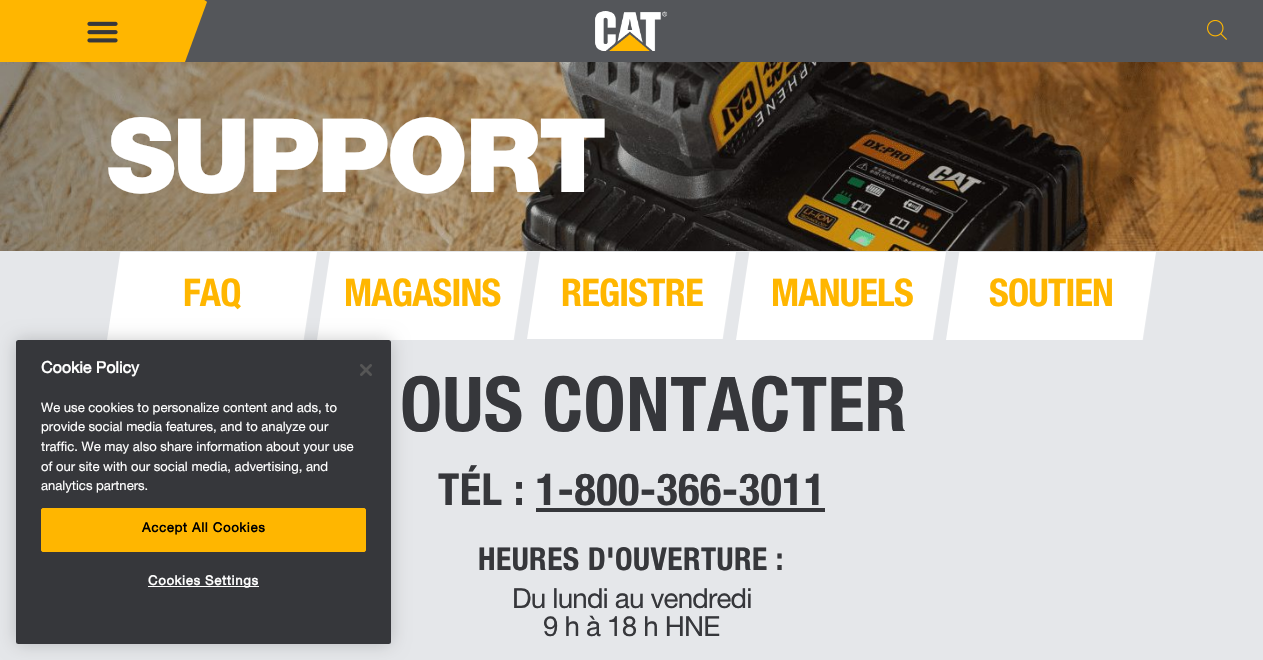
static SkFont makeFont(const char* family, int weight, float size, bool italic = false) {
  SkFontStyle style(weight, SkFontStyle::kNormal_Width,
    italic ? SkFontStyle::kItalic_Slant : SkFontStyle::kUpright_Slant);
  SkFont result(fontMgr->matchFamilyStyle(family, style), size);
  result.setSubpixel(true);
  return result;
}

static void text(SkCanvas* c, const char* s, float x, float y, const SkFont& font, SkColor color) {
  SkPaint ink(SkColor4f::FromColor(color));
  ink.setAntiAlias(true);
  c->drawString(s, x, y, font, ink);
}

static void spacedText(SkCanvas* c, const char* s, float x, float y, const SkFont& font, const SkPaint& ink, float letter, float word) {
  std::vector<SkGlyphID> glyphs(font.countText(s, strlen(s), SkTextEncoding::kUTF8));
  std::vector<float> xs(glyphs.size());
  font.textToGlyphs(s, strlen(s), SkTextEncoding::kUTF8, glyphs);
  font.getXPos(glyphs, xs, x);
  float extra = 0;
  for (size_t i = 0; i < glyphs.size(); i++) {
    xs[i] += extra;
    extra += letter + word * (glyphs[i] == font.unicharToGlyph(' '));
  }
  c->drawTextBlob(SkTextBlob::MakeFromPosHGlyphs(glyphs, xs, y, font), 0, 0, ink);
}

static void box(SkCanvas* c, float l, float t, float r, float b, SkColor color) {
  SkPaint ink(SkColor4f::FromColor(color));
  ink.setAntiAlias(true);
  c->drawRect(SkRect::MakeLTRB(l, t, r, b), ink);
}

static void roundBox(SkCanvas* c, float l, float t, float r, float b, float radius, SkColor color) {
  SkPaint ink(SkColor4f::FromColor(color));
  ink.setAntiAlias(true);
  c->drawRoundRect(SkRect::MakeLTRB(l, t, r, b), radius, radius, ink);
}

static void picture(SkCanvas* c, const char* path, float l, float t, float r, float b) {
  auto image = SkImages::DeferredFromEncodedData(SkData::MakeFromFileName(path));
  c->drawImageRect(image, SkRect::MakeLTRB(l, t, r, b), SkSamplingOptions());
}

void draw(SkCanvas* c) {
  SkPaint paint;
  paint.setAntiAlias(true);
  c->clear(0xff54565a);
  paint.setColor(0xffffb600);
  c->drawPath(SkPathBuilder().moveTo(0, 0).cubicTo(-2, 0, -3, 1, -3, 3).lineTo(-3, 59).cubicTo(-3, 61, -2, 62, 0, 62).lineTo(185, 62).lineTo(207, 2).cubicTo(206, 1, 205, 0, 204, 0).close().detach(), paint);
  picture(c, "img_01.png", 87, 21, 118, 43);
  picture(c, "img_02.png", 595, 11, 668, 51);
  picture(c, "img_03.png", 1207, 20, 1227, 40);
  picture(c, "img_04.png", 0, 62, 1263, 251);
  SkFont face1 = makeFont("Helvetica Neue", 900, 102.5f);
  paint.setColor(0xffffffff);
  spacedText(c, "SUPPORT", 107, 192, face1, paint, -2.75f, 0);
  box(c, 0, 251, 1263, 660, 0xffe5e7ea);
  picture(c, "img_05.png", 107, 252, 317, 340);
  SkFont face2 = makeFont("Helvetica Neue", 700, 38);
  paint.setColor(0xffffb600);
  spacedText(c, "FAQ", 183, 306, face2, paint, -0.75f, 0);
  picture(c, "img_05.png", 317, 252, 527, 340);
  spacedText(c, "MAGASINS", 344, 306, face2, paint, -0.75f, 0);
  picture(c, "img_06.png", 527, 252, 736, 339);
  spacedText(c, "REGISTRE", 561, 306, face2, paint, -0.75f, 0);
  picture(c, "img_05.png", 736, 252, 946, 340);
  spacedText(c, "MANUELS", 771, 306, face2, paint, -0.75f, 0);
  picture(c, "img_05.png", 946, 252, 1156, 340);
  spacedText(c, "SOUTIEN", 989, 306, face2, paint, -0.75f, 0);
  SkFont face3 = makeFont("Helvetica Neue", 700, 75.75f);
  paint.setColor(0xff36373b);
  spacedText(c, "OUS CONTACTER", 400, 431, face3, paint, 0.5f, 0);
  SkFont face4 = makeFont("Helvetica Neue", 700, 44.25f);
  spacedText(c, "TÉL : 1-800-366-3011", 438, 505, face4, paint, 0.5f, 0);
  box(c, 536, 508, 825, 512, 0xff36373b);
  SkFont face5 = makeFont("Helvetica Neue", 700, 31.5f);
  spacedText(c, "HEURES D'OUVERTURE :", 478, 570, face5, paint, 0.5f, 0);
  SkFont face6 = makeFont("Helvetica Neue", 400, 27.75f);
  spacedText(c, "Du lundi au vendredi", 512, 608, face6, paint, -0.8f, 0);
  spacedText(c, "9 h à 18 h HNE", 543, 636, face6, paint, -0.8f, 0);
  paint.setColor(0x33000000);
  paint.setMaskFilter(SkMaskFilter::MakeBlur(kNormal_SkBlurStyle, 9));
  c->drawRoundRect(SkRect::MakeLTRB(16, 340, 391, 644), 2.5f, 2.5f, paint);
  paint.setMaskFilter(nullptr);
  roundBox(c, 16, 340, 391, 644, 2.5f, 0xff36373b);
  SkFont face7 = makeFont("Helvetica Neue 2", 700, 16);
  text(c, "Cookie Policy", 41, 373, face7, 0xffffffff);
  SkFont face8 = makeFont("Helvetica Neue", 400, 13.1f);
  text(c, "We use cookies to personalize content and ads, to", 41, 412, face8, 0xffffffff);
  text(c, "provide social media features, and to analyze our", 41, 431, face8, 0xffffffff);
  text(c, "traffic. We may also share information about your use", 41, 451, face8, 0xffffffff);
  text(c, "of our site with our social media, advertising, and", 41, 471, face8, 0xffffffff);
  text(c, "analytics partners.", 41, 490, face8, 0xffffffff);
  picture(c, "img_07.png", 360, 364, 372, 376);
  paint.setColor(0xffffb600);
  c->drawRoundRect(SkRect::MakeLTRB(41.5f, 508.5f, 365.5f, 551.5f), 1.5f, 1.5f, paint);
  paint.setStyle(SkPaint::kStroke_Style);
  paint.setStrokeWidth(1);
  c->drawRoundRect(SkRect::MakeLTRB(41.5f, 508.5f, 365.5f, 551.5f), 1.5f, 1.5f, paint);
  SkFont face9 = makeFont("Helvetica Neue 2", 700, 13.1f);
  paint.setStyle(SkPaint::kFill_Style);
  paint.setColor(0xff000000);
  spacedText(c, "Accept All Cookies", 142, 532, face9, paint, 0.7f, 0);
  box(c, 148, 586, 259, 587, 0xffffffff);
  paint.setColor(0xffffffff);
  spacedText(c, "Cookies Settings", 148, 585, face9, paint, 0.7f, 0);
}
